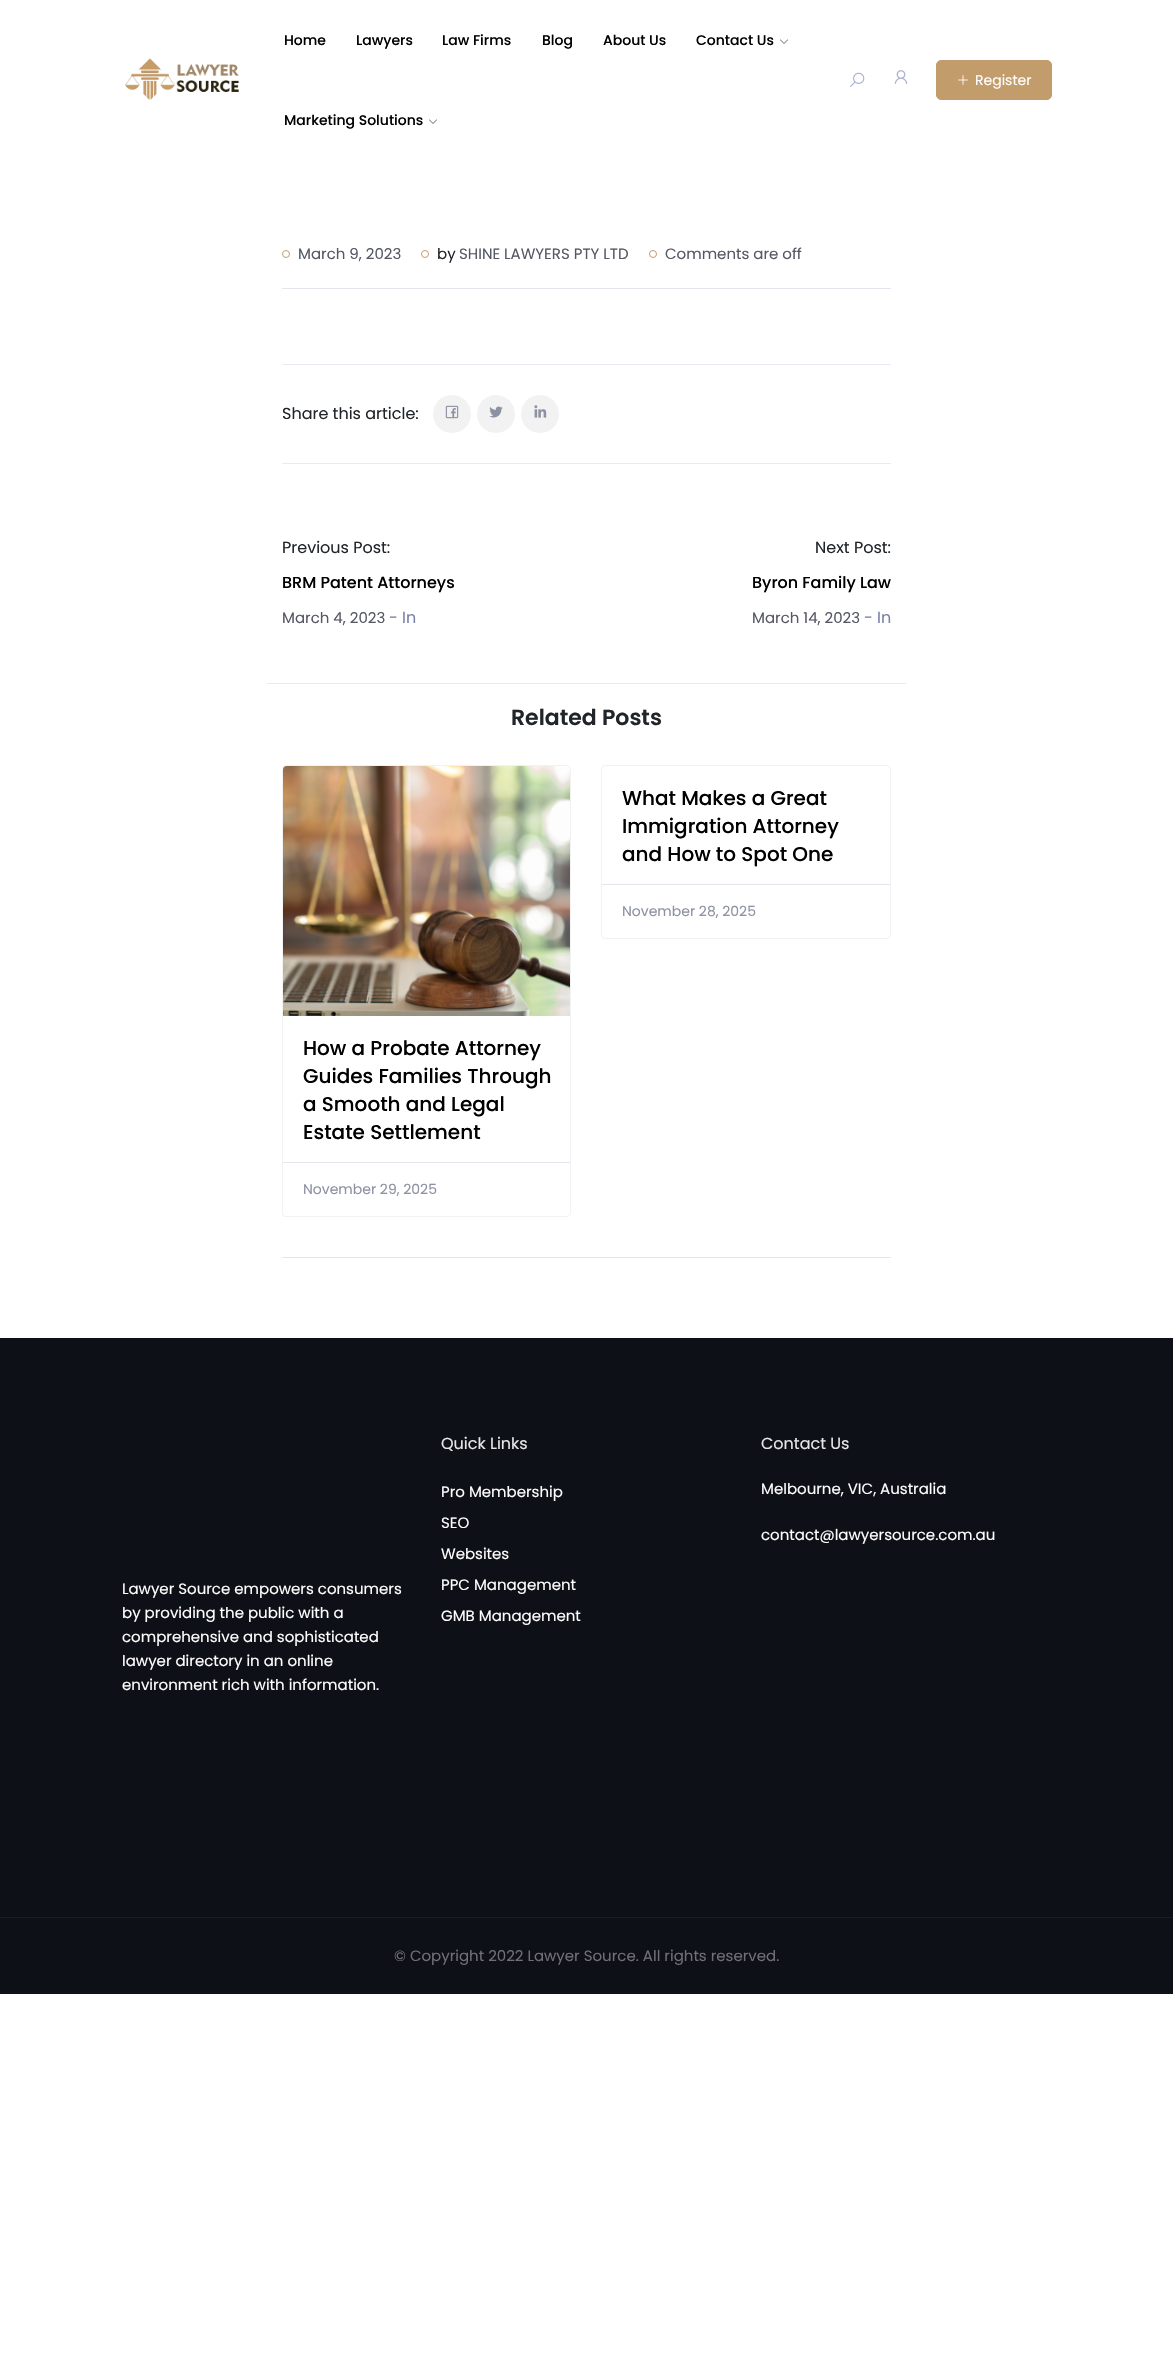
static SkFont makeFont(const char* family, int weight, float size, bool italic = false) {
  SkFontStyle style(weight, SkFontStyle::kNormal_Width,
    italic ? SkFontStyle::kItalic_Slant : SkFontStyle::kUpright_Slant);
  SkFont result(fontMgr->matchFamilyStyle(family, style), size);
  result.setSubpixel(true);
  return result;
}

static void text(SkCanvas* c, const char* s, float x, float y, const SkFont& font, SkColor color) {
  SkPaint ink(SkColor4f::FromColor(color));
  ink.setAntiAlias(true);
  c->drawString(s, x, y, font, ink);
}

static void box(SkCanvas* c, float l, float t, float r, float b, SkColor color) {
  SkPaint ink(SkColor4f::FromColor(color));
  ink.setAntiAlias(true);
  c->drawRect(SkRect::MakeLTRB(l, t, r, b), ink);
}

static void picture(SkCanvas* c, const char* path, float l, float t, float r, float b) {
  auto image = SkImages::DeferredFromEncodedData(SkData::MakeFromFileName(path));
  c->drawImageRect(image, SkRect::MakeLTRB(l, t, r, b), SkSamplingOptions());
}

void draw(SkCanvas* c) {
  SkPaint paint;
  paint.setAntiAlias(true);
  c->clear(0xffffffff);
  picture(c, "img_01.png", 125, 58, 239, 100);
  SkFont face1 = makeFont("Poppins", 500, 14);
  text(c, "Home", 284, 45, face1, 0xff000000);
  text(c, "Lawyers", 356, 45, face1, 0xff000000);
  text(c, "Law Firms", 442, 45, face1, 0xff000000);
  text(c, "Blog", 542, 45, face1, 0xff000000);
  text(c, "About Us", 603, 45, face1, 0xff000000);
  text(c, "Contact Us", 696, 45, face1, 0xff000000);
  picture(c, "img_02.png", 780, 39, 788, 44);
  text(c, "Marketing Solutions", 284, 125, face1, 0xff000000);
  picture(c, "img_02.png", 429, 119, 437, 124);
  picture(c, "img_03.png", 850, 72, 865, 87);
  picture(c, "img_04.png", 894, 70, 908, 84);
  paint.setColor(0xffc29c6a);
  c->drawRoundRect(SkRect::MakeLTRB(936.5f, 60.5f, 1051.5f, 99.5f), 4.5f, 4.5f, paint);
  paint.setStyle(SkPaint::kStroke_Style);
  paint.setStrokeWidth(1);
  c->drawRoundRect(SkRect::MakeLTRB(936.5f, 60.5f, 1051.5f, 99.5f), 4.5f, 4.5f, paint);
  picture(c, "img_05.png", 958, 75, 968, 85);
  SkFont face2 = makeFont("Poppins", 400, 14);
  text(c, "Register", 975, 85, face2, 0xffffffff);
  box(c, 282, 288, 891, 289, 0xffe3e6ef);
  c->drawCircle(286, 254, 3.5f, paint);
  SkFont face3 = makeFont("Poppins", 400, 15);
  text(c, "March 9, 2023", 298, 259, face3, 0xff565865);
  c->drawCircle(425, 254, 3.5f, paint);
  text(c, "by", 437, 259, face3, 0xff212529);
  text(c, "SHINE LAWYERS PTY LTD", 459, 259, face3, 0xff565865);
  c->drawCircle(653, 254, 3.5f, paint);
  text(c, "Comments are off", 665, 259, face3, 0xff565865);
  box(c, 282, 364, 891, 365, 0xffe9ebf4);
  box(c, 282, 463, 891, 464, 0xffe9ebf4);
  SkFont face4 = makeFont("Poppins", 400, 16);
  text(c, "Share this article:", 282, 419, face4, 0xff212529);
  paint.setStyle(SkPaint::kFill_Style);
  paint.setColor(0xfff2f2f2);
  c->drawCircle(452, 414, 19, paint);
  picture(c, "img_06.png", 445, 405, 459, 419);
  c->drawCircle(496, 414, 19, paint);
  picture(c, "img_07.png", 489, 406, 503, 418);
  c->drawCircle(540, 414, 19, paint);
  picture(c, "img_08.png", 534, 405, 547, 418);
  box(c, 267, 683, 906, 684, 0xffe9ebf4);
  text(c, "Previous Post:", 282, 553, face4, 0xff212529);
  SkFont face5 = makeFont("Poppins", 500, 16);
  text(c, "BRM Patent Attorneys", 282, 588, face5, 0xff000000);
  text(c, "March 4, 2023", 282, 623, face3, 0xff565865);
  text(c, "- In", 389, 623, face4, 0xff7a82a6);
  text(c, "Next Post:", 815, 553, face4, 0xff212529);
  text(c, "Byron Family Law", 752, 588, face5, 0xff000000);
  text(c, "March 14, 2023", 752, 623, face3, 0xff565865);
  text(c, "- In", 864, 623, face4, 0xff7a82a6);
  box(c, 282, 1257, 891, 1258, 0xffe3e6ef);
  SkFont face6 = makeFont("Poppins", 600, 22);
  text(c, "Related Posts", 511, 725, face6, 0xff212529);
  paint.setStyle(SkPaint::kStroke_Style);
  c->drawRoundRect(SkRect::MakeLTRB(601.5f, 765.5f, 890.5f, 938.5f), 3.5f, 3.5f, paint);
  SkFont face7 = makeFont("Poppins", 500, 20);
  text(c, "What Makes a Great", 622, 805, face7, 0xff000000);
  text(c, "Immigration Attorney", 622, 833, face7, 0xff000000);
  text(c, "and How to Spot One", 622, 861, face7, 0xff000000);
  box(c, 602, 884, 890, 885, 0xffe3e6ef);
  text(c, "November 28, 2025", 622, 916, face2, 0xff8d91a2);
  c->drawRoundRect(SkRect::MakeLTRB(282.5f, 765.5f, 570.5f, 1216.5f), 3.5f, 3.5f, paint);
  picture(c, "img_09.png", 283, 766, 570, 1016);
  text(c, "How a Probate Attorney", 303, 1055, face7, 0xff000000);
  text(c, "Guides Families Through", 303, 1083, face7, 0xff000000);
  text(c, "a Smooth and Legal", 303, 1111, face7, 0xff000000);
  text(c, "Estate Settlement", 303, 1139, face7, 0xff000000);
  box(c, 283, 1162, 570, 1163, 0xffe3e6ef);
  text(c, "November 29, 2025", 303, 1194, face2, 0xff8d91a2);
  box(c, 0, 1338, 1173, 1917, 0xff0e1017);
  text(c, "Quick Links", 441, 1449, face4, 0xffe7e7e8);
  text(c, "Pro Membership", 441, 1497, face3, 0xffffffff);
  text(c, "SEO", 441, 1528, face3, 0xffffffff);
  text(c, "Websites", 441, 1559, face3, 0xffffffff);
  text(c, "PPC Management", 441, 1590, face3, 0xffffffff);
  text(c, "GMB Management", 441, 1621, face3, 0xffffffff);
  text(c, "Contact Us", 761, 1449, face4, 0xffe7e7e8);
  text(c, "Melbourne, VIC, Australia", 761, 1494, face3, 0xffffffff);
  text(c, "contact@lawyersource.com.au", 761, 1540, face3, 0xffffffff);
  text(c, "Lawyer Source empowers consumers", 122, 1594, face3, 0xffffffff);
  text(c, "by providing the public with a", 122, 1618, face3, 0xffffffff);
  text(c, "comprehensive and sophisticated", 122, 1642, face3, 0xffffffff);
  text(c, "lawyer directory in an online", 122, 1666, face3, 0xffffffff);
  text(c, "environment rich with information.", 122, 1690, face3, 0xffffffff);
  box(c, 0, 1918, 1173, 1994, 0xff0e1017);
  box(c, 0, 1917, 1173, 1918, 0xff1a1c23);
  text(c, "© Copyright 2022 Lawyer Source. All rights reserved.", 394, 1961, face3, 0xff6e7074);
}
